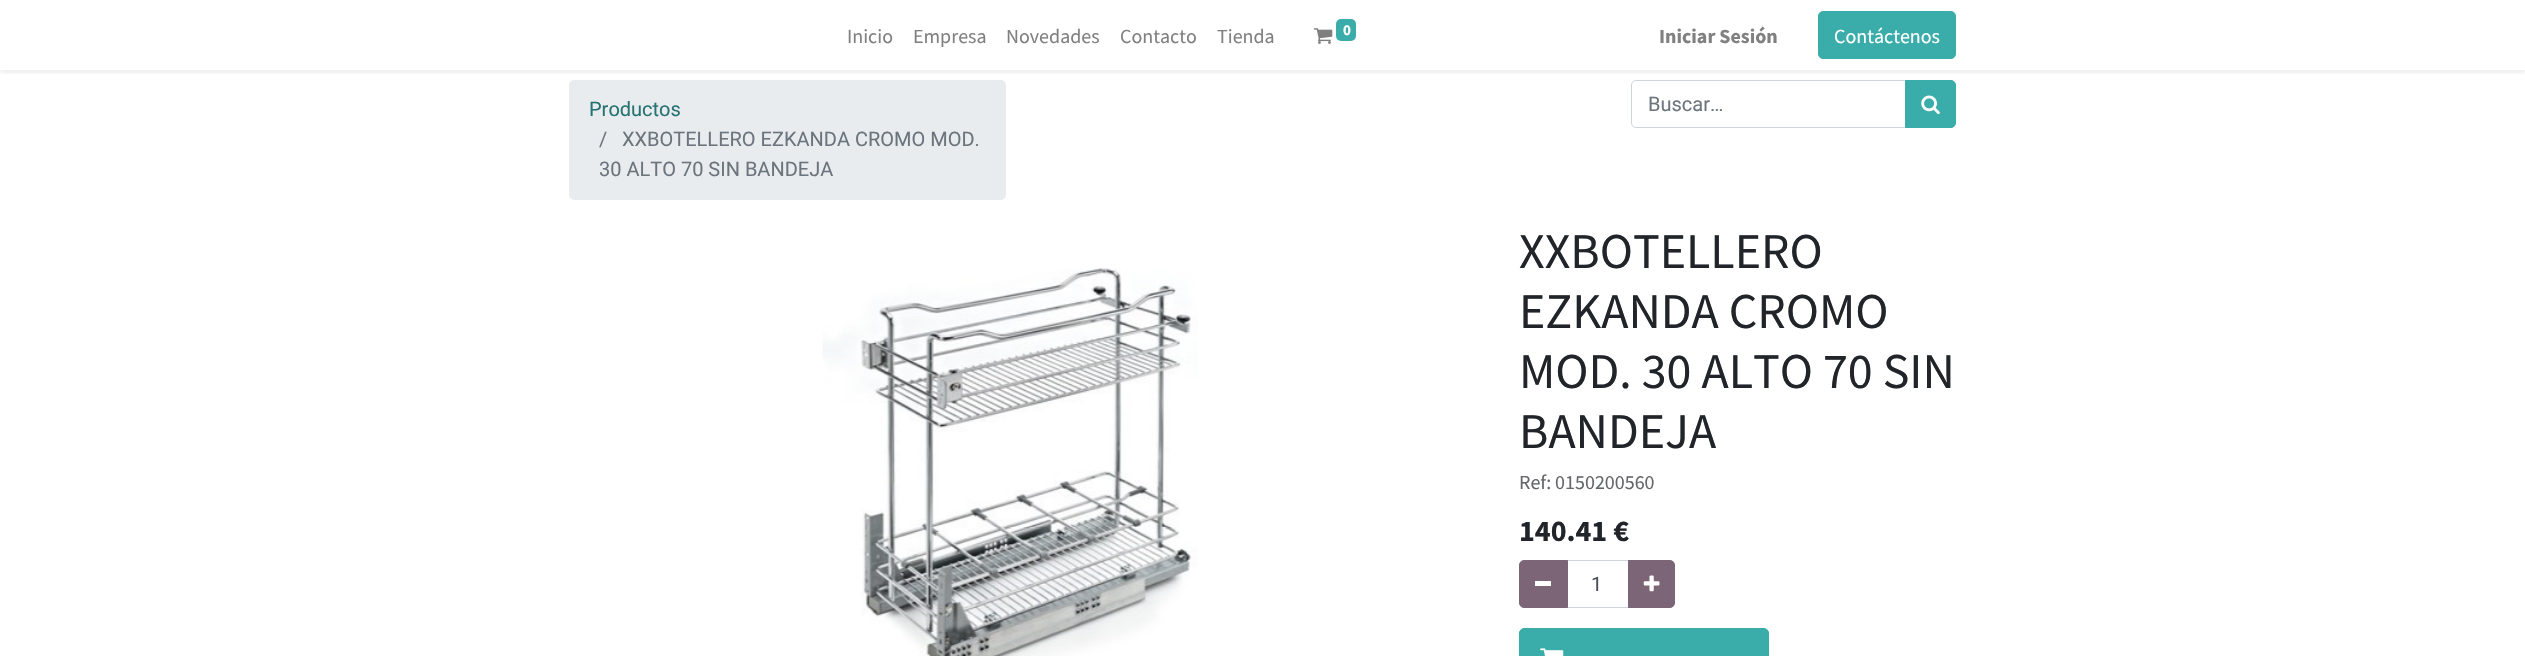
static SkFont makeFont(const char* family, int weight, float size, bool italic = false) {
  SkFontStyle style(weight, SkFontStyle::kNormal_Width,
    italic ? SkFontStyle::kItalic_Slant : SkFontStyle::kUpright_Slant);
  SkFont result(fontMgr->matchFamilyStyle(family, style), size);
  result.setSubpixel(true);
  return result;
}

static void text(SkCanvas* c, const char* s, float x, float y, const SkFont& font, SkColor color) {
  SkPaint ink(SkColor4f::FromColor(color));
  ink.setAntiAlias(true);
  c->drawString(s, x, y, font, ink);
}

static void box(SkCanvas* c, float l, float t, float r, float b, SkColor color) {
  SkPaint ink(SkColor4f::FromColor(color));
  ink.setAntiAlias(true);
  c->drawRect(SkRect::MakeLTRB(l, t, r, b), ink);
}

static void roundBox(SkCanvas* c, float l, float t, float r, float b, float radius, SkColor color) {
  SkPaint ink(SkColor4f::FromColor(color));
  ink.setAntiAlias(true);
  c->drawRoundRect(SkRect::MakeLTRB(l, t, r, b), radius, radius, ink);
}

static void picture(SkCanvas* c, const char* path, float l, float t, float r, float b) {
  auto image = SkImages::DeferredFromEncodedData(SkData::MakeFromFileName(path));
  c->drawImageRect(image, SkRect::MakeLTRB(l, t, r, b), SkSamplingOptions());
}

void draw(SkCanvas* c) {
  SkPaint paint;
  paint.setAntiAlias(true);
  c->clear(0xffffffff);
  roundBox(c, 569, 80, 1006, 200, 5, 0xffe9ecef);
  paint.setStyle(SkPaint::kStroke_Style);
  paint.setStrokeWidth(1);
  paint.setColor(0xffced4da);
  c->drawPath(SkPathBuilder().moveTo(1636, 80.5f).lineTo(1905.5f, 80.5f).lineTo(1905.5f, 127.5f).lineTo(1636, 127.5f).cubicTo(1633.5f, 127.5f, 1631.5f, 125.5f, 1631.5f, 123).lineTo(1631.5f, 85).cubicTo(1631.5f, 82.5f, 1633.5f, 80.5f, 1636, 80.5f).close().detach(), paint);
  paint.setStyle(SkPaint::kFill_Style);
  paint.setColor(0xff3aadaa);
  c->drawPath(SkPathBuilder().moveTo(1905.5f, 80.5f).lineTo(1951, 80.5f).cubicTo(1953.5f, 80.5f, 1955.5f, 82.5f, 1955.5f, 85).lineTo(1955.5f, 123).cubicTo(1955.5f, 125.5f, 1953.5f, 127.5f, 1951, 127.5f).lineTo(1905.5f, 127.5f).close().detach(), paint);
  paint.setStyle(SkPaint::kStroke_Style);
  c->drawPath(SkPathBuilder().moveTo(1905.5f, 80.5f).lineTo(1951, 80.5f).cubicTo(1953.5f, 80.5f, 1955.5f, 82.5f, 1955.5f, 85).lineTo(1955.5f, 123).cubicTo(1955.5f, 125.5f, 1953.5f, 127.5f, 1951, 127.5f).lineTo(1905.5f, 127.5f).close().detach(), paint);
  c->save();
  c->clipRect(SkRect::MakeLTRB(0, 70, 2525, 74));
  paint.setStyle(SkPaint::kFill_Style);
  paint.setColor(0x12000000);
  paint.setMaskFilter(SkMaskFilter::MakeBlur(kNormal_SkBlurStyle, 2.5f));
  c->drawRect(SkRect::MakeLTRB(0, 3, 2525, 73), paint);
  paint.setMaskFilter(nullptr);
  c->restore();
  SkFont face1 = makeFont("Source Sans Pro", 400, 20);
  text(c, "Inicio", 847, 43, face1, 0xff808080);
  text(c, "Empresa", 913, 43, face1, 0xff808080);
  text(c, "Novedades", 1006, 43, face1, 0xff808080);
  text(c, "Contacto", 1120, 43, face1, 0xff808080);
  text(c, "Tienda", 1217, 43, face1, 0xff808080);
  picture(c, "img_01.png", 1313, 28, 1333, 44);
  roundBox(c, 1336, 19, 1356, 41, 5, 0xff3aadaa);
  SkFont face2 = makeFont("Source Sans Pro", 700, 15);
  text(c, "0", 1343, 35, face2, 0xffffffff);
  SkFont face3 = makeFont("Source Sans Pro", 700, 20);
  text(c, "Iniciar Sesión", 1659, 43, face3, 0xff808080);
  paint.setColor(0xff3aadaa);
  c->drawRoundRect(SkRect::MakeLTRB(1818.5f, 11.5f, 1955.5f, 58.5f), 4.5f, 4.5f, paint);
  paint.setStyle(SkPaint::kStroke_Style);
  c->drawRoundRect(SkRect::MakeLTRB(1818.5f, 11.5f, 1955.5f, 58.5f), 4.5f, 4.5f, paint);
  text(c, "Contáctenos", 1834, 43, face1, 0xffffffff);
  SkFont face4 = makeFont("Roboto", 400, 20);
  text(c, "Productos", 589, 116, face4, 0xff267372);
  text(c, "/", 599, 146, face4, 0xff6c757d);
  text(c, "XXBOTELLERO EZKANDA CROMO MOD.", 622, 146, face4, 0xff6c757d);
  text(c, "30 ALTO 70 SIN BANDEJA", 599, 176, face4, 0xff6c757d);
  text(c, "Buscar…", 1648, 111, face4, 0xff6c757d);
  picture(c, "img_02.png", 1921, 95, 1940, 115);
  picture(c, "img_03.png", 822, 268, 1198, 656);
  SkFont face5 = makeFont("Source Sans Pro", 400, 50);
  text(c, "XXBOTELLERO", 1519, 268, face5, 0xff212529);
  text(c, "EZKANDA CROMO", 1519, 328, face5, 0xff212529);
  text(c, "MOD. 30 ALTO 70 SIN", 1519, 388, face5, 0xff212529);
  text(c, "BANDEJA", 1519, 448, face5, 0xff212529);
  text(c, "Ref: 0150200560", 1519, 489, face1, 0xff646669);
  SkFont face6 = makeFont("Source Sans Pro", 700, 30);
  text(c, "140.41 €", 1519, 541, face6, 0xff212529);
  paint.setColor(0xffced4da);
  c->drawRect(SkRect::MakeLTRB(1566.5f, 560.5f, 1628.5f, 607.5f), paint);
  paint.setStyle(SkPaint::kFill_Style);
  paint.setColor(0xff7c6576);
  c->drawPath(SkPathBuilder().moveTo(1524, 560.5f).lineTo(1567.5f, 560.5f).lineTo(1567.5f, 607.5f).lineTo(1524, 607.5f).cubicTo(1521.5f, 607.5f, 1519.5f, 605.5f, 1519.5f, 603).lineTo(1519.5f, 565).cubicTo(1519.5f, 562.5f, 1521.5f, 560.5f, 1524, 560.5f).close().detach(), paint);
  paint.setStyle(SkPaint::kStroke_Style);
  c->drawPath(SkPathBuilder().moveTo(1524, 560.5f).lineTo(1567.5f, 560.5f).lineTo(1567.5f, 607.5f).lineTo(1524, 607.5f).cubicTo(1521.5f, 607.5f, 1519.5f, 605.5f, 1519.5f, 603).lineTo(1519.5f, 565).cubicTo(1519.5f, 562.5f, 1521.5f, 560.5f, 1524, 560.5f).close().detach(), paint);
  box(c, 1535, 581, 1551, 586, 0xffffffff);
  text(c, "1", 1591, 591, face4, 0xff495057);
  paint.setStyle(SkPaint::kFill_Style);
  c->drawPath(SkPathBuilder().moveTo(1628.5f, 560.5f).lineTo(1670, 560.5f).cubicTo(1672.5f, 560.5f, 1674.5f, 562.5f, 1674.5f, 565).lineTo(1674.5f, 603).cubicTo(1674.5f, 605.5f, 1672.5f, 607.5f, 1670, 607.5f).lineTo(1628.5f, 607.5f).close().detach(), paint);
  paint.setStyle(SkPaint::kStroke_Style);
  c->drawPath(SkPathBuilder().moveTo(1628.5f, 560.5f).lineTo(1670, 560.5f).cubicTo(1672.5f, 560.5f, 1674.5f, 562.5f, 1674.5f, 565).lineTo(1674.5f, 603).cubicTo(1674.5f, 605.5f, 1672.5f, 607.5f, 1670, 607.5f).lineTo(1628.5f, 607.5f).close().detach(), paint);
  picture(c, "img_04.png", 1643, 575, 1660, 592);
  paint.setStyle(SkPaint::kFill_Style);
  paint.setColor(0xff3aadaa);
  c->drawPath(SkPathBuilder().moveTo(1525, 628).lineTo(1763, 628).cubicTo(1766.5f, 628, 1769, 630.5f, 1769, 634).lineTo(1769, 656).lineTo(1519, 656).lineTo(1519, 634).cubicTo(1519, 630.5f, 1521.5f, 628, 1525, 628).close().detach(), paint);
  paint.setStyle(SkPaint::kStroke_Style);
  c->drawRoundRect(SkRect::MakeLTRB(1519.5f, 628.5f, 1768.5f, 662.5f), 5.5f, 5.5f, paint);
  picture(c, "img_05.png", 1540, 648, 1564, 656);
}
